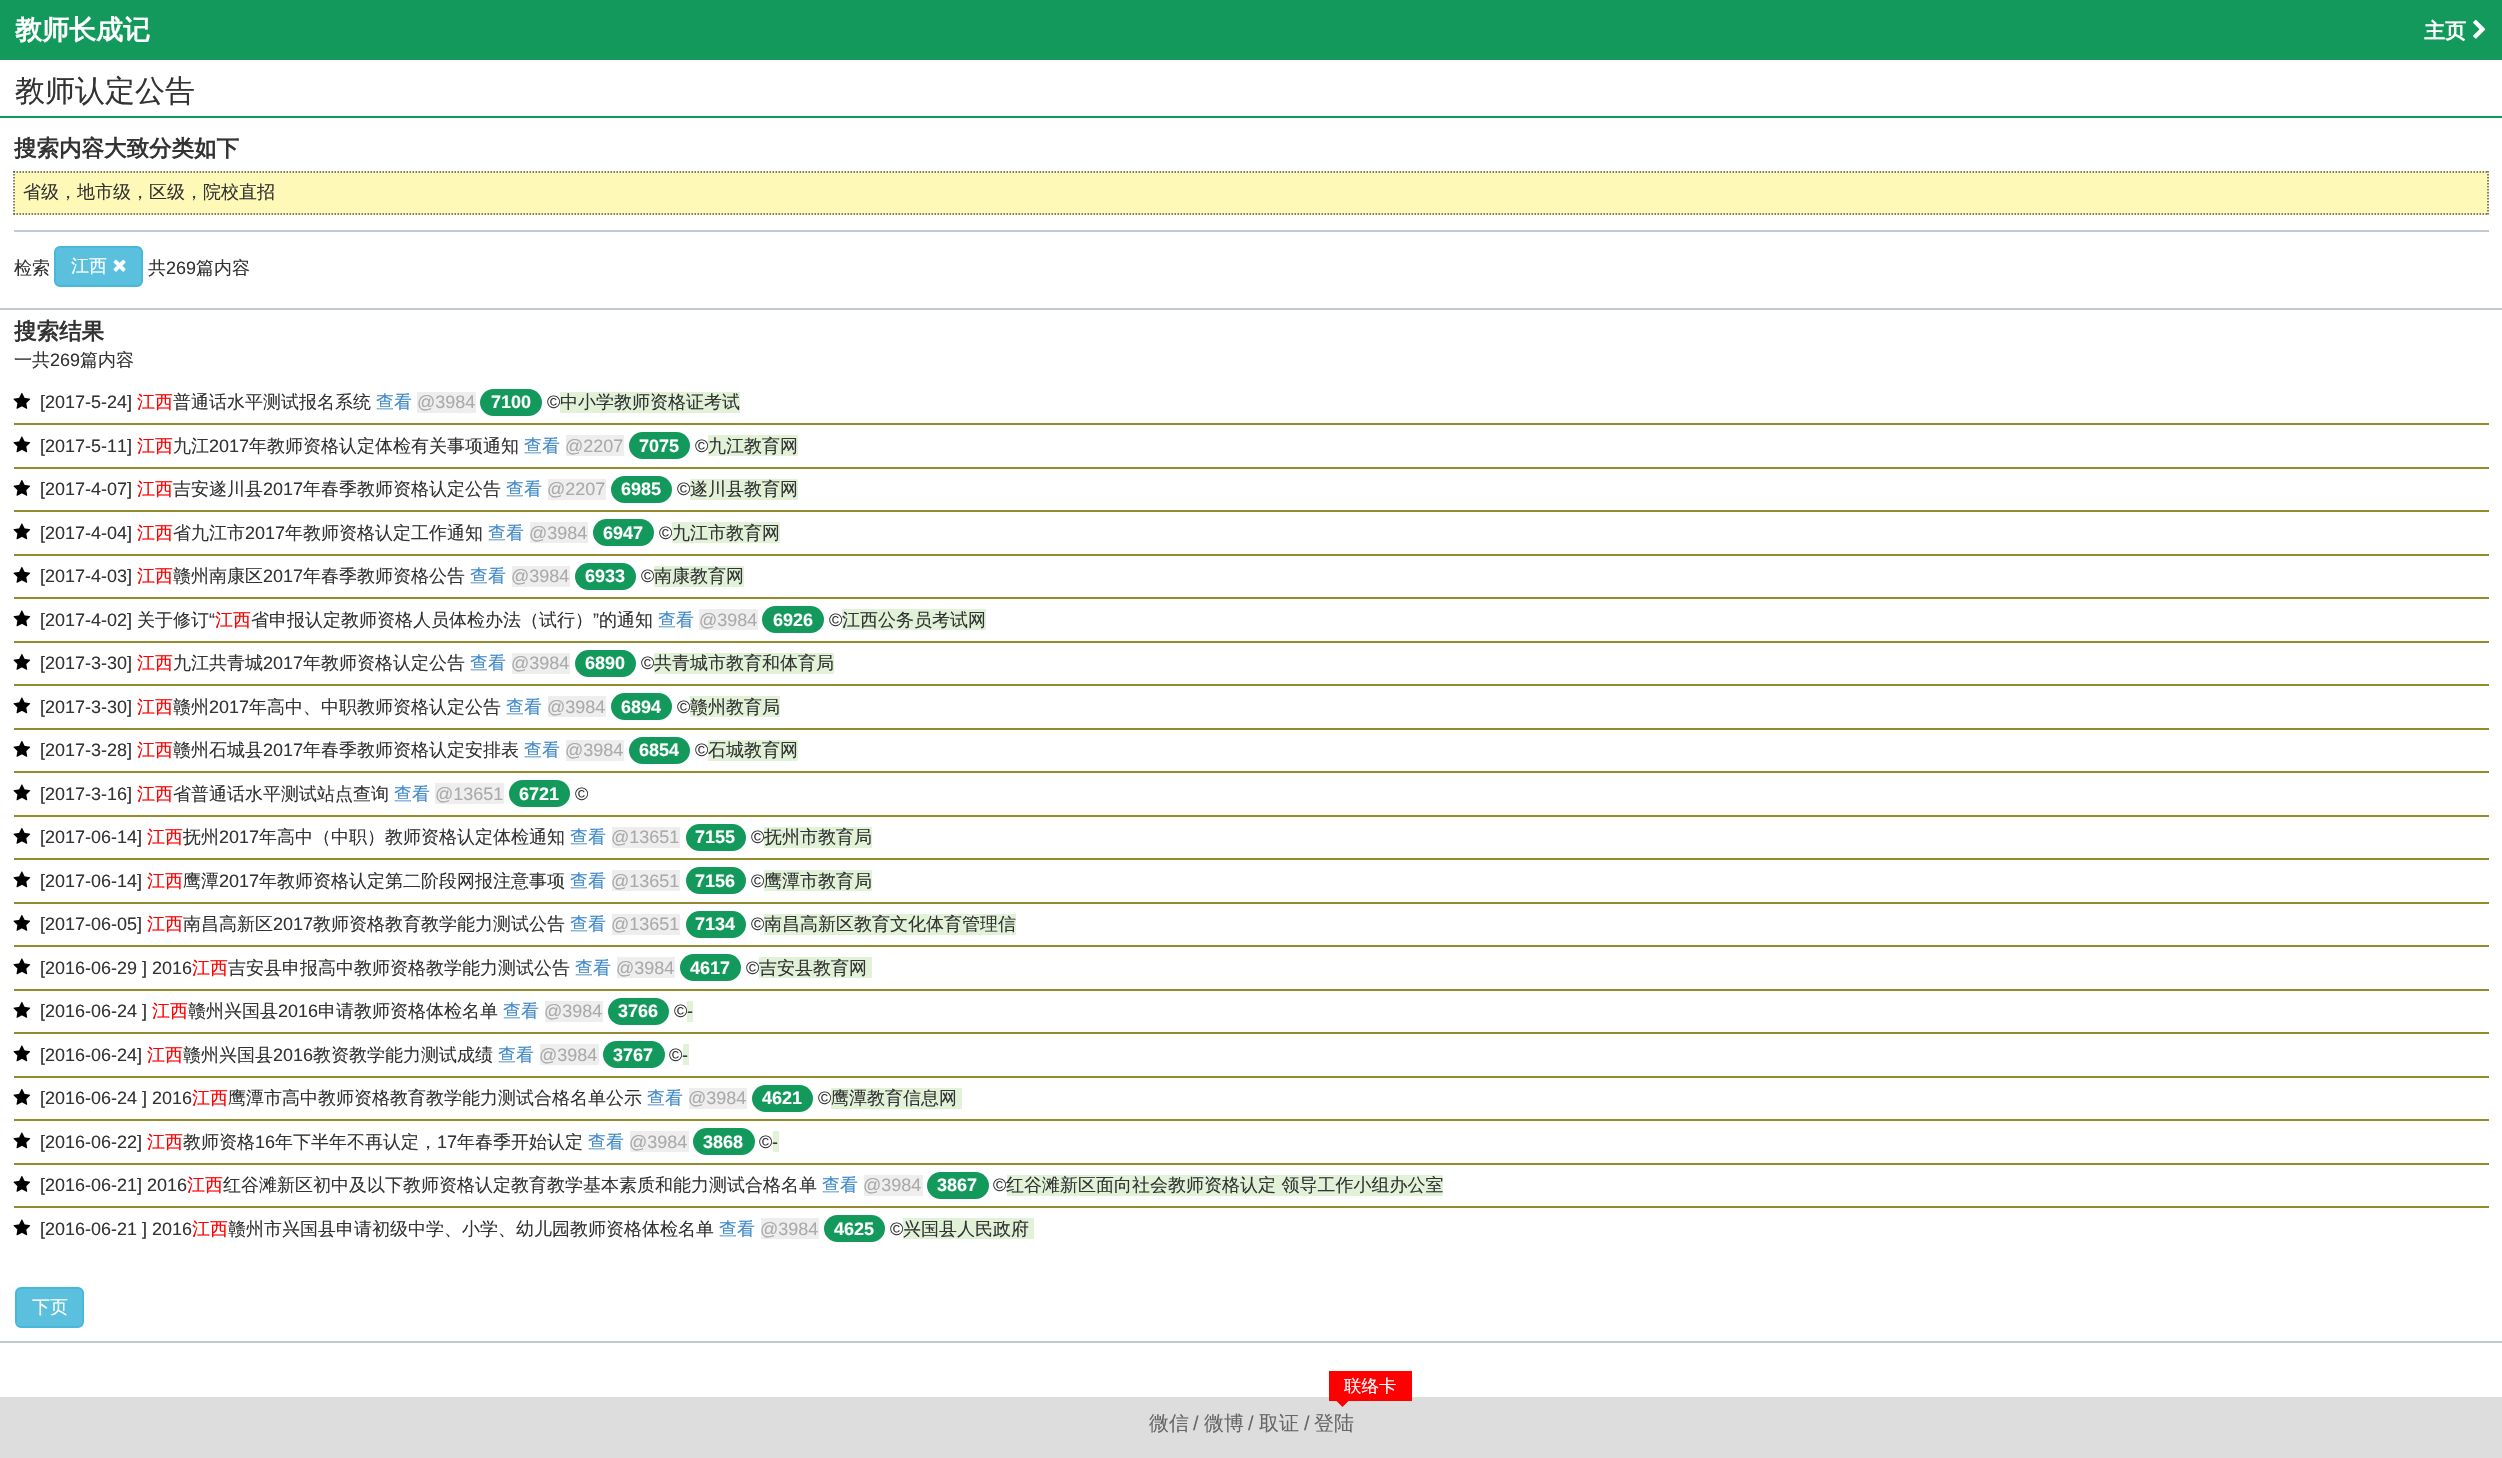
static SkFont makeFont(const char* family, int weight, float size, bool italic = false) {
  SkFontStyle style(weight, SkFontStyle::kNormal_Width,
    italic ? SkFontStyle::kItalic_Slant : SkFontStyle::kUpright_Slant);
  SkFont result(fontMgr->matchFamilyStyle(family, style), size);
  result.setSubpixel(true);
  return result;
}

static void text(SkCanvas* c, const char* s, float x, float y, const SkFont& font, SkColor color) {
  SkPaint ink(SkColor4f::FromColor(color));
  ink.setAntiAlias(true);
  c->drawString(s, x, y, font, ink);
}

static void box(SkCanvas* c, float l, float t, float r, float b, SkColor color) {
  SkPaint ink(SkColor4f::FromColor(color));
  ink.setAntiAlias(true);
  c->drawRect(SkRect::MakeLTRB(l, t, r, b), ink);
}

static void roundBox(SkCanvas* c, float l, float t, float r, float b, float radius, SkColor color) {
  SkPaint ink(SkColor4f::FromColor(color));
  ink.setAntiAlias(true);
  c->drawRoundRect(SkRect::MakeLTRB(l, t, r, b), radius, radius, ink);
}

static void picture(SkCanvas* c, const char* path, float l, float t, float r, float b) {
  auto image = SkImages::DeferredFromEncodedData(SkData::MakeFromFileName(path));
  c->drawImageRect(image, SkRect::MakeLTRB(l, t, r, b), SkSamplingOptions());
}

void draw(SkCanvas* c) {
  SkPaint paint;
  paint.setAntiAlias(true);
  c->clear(0xffffffff);
  box(c, 0, 0, 2502, 60, 0xff12995b);
  SkFont face1 = makeFont("WenQuanYi Zen Hei", 700, 27);
  text(c, "教师长成记", 15, 39, face1, 0xffffffff);
  SkFont face2 = makeFont("WenQuanYi Zen Hei", 700, 21);
  text(c, "主页", 2424, 38, face2, 0xffffffff);
  picture(c, "img_01.png", 2473, 19, 2486, 39);
  SkFont face3 = makeFont("WenQuanYi Zen Hei", 500, 30);
  text(c, "教师认定公告", 15, 101, face3, 0xff333333);
  box(c, 0, 116, 2502, 118, 0xff12995b);
  box(c, 0, 1341, 2502, 1343, 0xffc3c9d0);
  SkFont face4 = makeFont("WenQuanYi Zen Hei", 700, 22.5f);
  text(c, "搜索内容大致分类如下", 14, 156, face4, 0xff333333);
  box(c, 14, 171, 2489, 215, 0xfffff9b7);
  paint.setStyle(SkPaint::kStroke_Style);
  paint.setStrokeWidth(1.5f);
  paint.setColor(0xff535353);
  paint.setPathEffect(SkDashPathEffect::Make({{1.5f, 1.5f}}, 0));
  c->drawPath(SkPathBuilder().moveTo(13.5f, 172).lineTo(2488.5f, 172).detach(), paint);
  paint.setPathEffect(nullptr);
  paint.setPathEffect(SkDashPathEffect::Make({{1.5f, 1.5f}}, 0));
  c->drawPath(SkPathBuilder().moveTo(2488, 171).lineTo(2488, 214.5f).detach(), paint);
  paint.setPathEffect(nullptr);
  paint.setPathEffect(SkDashPathEffect::Make({{1.5f, 1.5f}}, 0));
  c->drawPath(SkPathBuilder().moveTo(13.5f, 214).lineTo(2488.5f, 214).detach(), paint);
  paint.setPathEffect(nullptr);
  paint.setPathEffect(SkDashPathEffect::Make({{1.5f, 1.5f}}, 0));
  c->drawPath(SkPathBuilder().moveTo(14, 171).lineTo(14, 214.5f).detach(), paint);
  paint.setPathEffect(nullptr);
  SkFont face5 = makeFont("WenQuanYi Zen Hei", 500, 18);
  text(c, "省级，地市级，区级，院校直招", 23, 198, face5, 0xff333333);
  box(c, 14, 230, 2489, 232, 0xffc3c9d0);
  text(c, "检索", 14, 274, face5, 0xff333333);
  paint.setStyle(SkPaint::kFill_Style);
  paint.setColor(0xff5bc0de);
  c->drawRoundRect(SkRect::MakeLTRB(55, 247, 142, 286), 5, 5, paint);
  paint.setStyle(SkPaint::kStroke_Style);
  paint.setStrokeWidth(2);
  paint.setColor(0xff46b8da);
  c->drawRoundRect(SkRect::MakeLTRB(55, 247, 142, 286), 5, 5, paint);
  text(c, "江西", 71, 272, face5, 0xffffffff);
  picture(c, "img_02.png", 113, 259, 126, 272);
  text(c, "共", 148, 274, face5, 0xff333333);
  SkFont face6 = makeFont("Liberation Sans", 400, 18);
  text(c, "269", 166, 274, face6, 0xff333333);
  text(c, "篇内容", 196, 274, face5, 0xff333333);
  box(c, 0, 308, 2502, 310, 0xffc3c9d0);
  text(c, "搜索结果", 14, 339, face4, 0xff333333);
  text(c, "一共", 14, 366, face5, 0xff333333);
  text(c, "269", 50, 366, face6, 0xff333333);
  text(c, "篇内容", 80, 366, face5, 0xff333333);
  picture(c, "img_03.png", 13, 392, 31, 409);
  text(c, "[2017-5-24]", 40, 408, face6, 0xff333333);
  text(c, "江西", 137, 408, face5, 0xffff0000);
  text(c, "普通话水平测试报名系统", 173, 408, face5, 0xff333333);
  text(c, "查看", 376, 408, face5, 0xff428bca);
  box(c, 417, 392, 476, 413, 0xffeeeeee);
  text(c, "@3984", 417, 408, face6, 0xffaaaaaa);
  roundBox(c, 480, 389, 542, 416, 13.5f, 0xff12995b);
  SkFont face7 = makeFont("Liberation Sans", 700, 18);
  text(c, "7100", 491, 408, face7, 0xffffffff);
  text(c, "©", 547, 408, face6, 0xff333333);
  box(c, 560, 392, 740, 413, 0xffe2f2d9);
  text(c, "中小学教师资格证考试", 560, 408, face5, 0xff333333);
  box(c, 14, 423, 2489, 425, 0xff948b2c);
  picture(c, "img_04.png", 13, 436, 31, 453);
  text(c, "[2017-5-11]", 40, 452, face6, 0xff333333);
  text(c, "江西", 137, 452, face5, 0xffff0000);
  text(c, "九江", 173, 452, face5, 0xff333333);
  text(c, "2017", 209, 452, face6, 0xff333333);
  text(c, "年教师资格认定体检有关事项通知", 249, 452, face5, 0xff333333);
  text(c, "查看", 524, 452, face5, 0xff428bca);
  box(c, 566, 435, 624, 456, 0xffeeeeee);
  text(c, "@2207", 565, 452, face6, 0xffaaaaaa);
  roundBox(c, 629, 432, 690, 459, 13.5f, 0xff12995b);
  text(c, "7075", 639, 452, face7, 0xffffffff);
  text(c, "©", 695, 452, face6, 0xff333333);
  box(c, 708, 435, 798, 456, 0xffe2f2d9);
  text(c, "九江教育网", 708, 452, face5, 0xff333333);
  box(c, 14, 467, 2489, 469, 0xff948b2c);
  picture(c, "img_03.png", 13, 479, 31, 496);
  text(c, "[2017-4-07]", 40, 495, face6, 0xff333333);
  text(c, "江西", 137, 495, face5, 0xffff0000);
  text(c, "吉安遂川县", 173, 495, face5, 0xff333333);
  text(c, "2017", 263, 495, face6, 0xff333333);
  text(c, "年春季教师资格认定公告", 303, 495, face5, 0xff333333);
  text(c, "查看", 506, 495, face5, 0xff428bca);
  box(c, 548, 479, 606, 500, 0xffeeeeee);
  text(c, "@2207", 547, 495, face6, 0xffaaaaaa);
  roundBox(c, 611, 476, 672, 503, 13.5f, 0xff12995b);
  text(c, "6985", 621, 495, face7, 0xffffffff);
  text(c, "©", 677, 495, face6, 0xff333333);
  box(c, 690, 479, 798, 500, 0xffe2f2d9);
  text(c, "遂川县教育网", 690, 495, face5, 0xff333333);
  box(c, 14, 510, 2489, 512, 0xff948b2c);
  picture(c, "img_04.png", 13, 523, 31, 540);
  text(c, "[2017-4-04]", 40, 539, face6, 0xff333333);
  text(c, "江西", 137, 539, face5, 0xffff0000);
  text(c, "省九江市", 173, 539, face5, 0xff333333);
  text(c, "2017", 245, 539, face6, 0xff333333);
  text(c, "年教师资格认定工作通知", 285, 539, face5, 0xff333333);
  text(c, "查看", 488, 539, face5, 0xff428bca);
  box(c, 530, 522, 588, 543, 0xffeeeeee);
  text(c, "@3984", 529, 539, face6, 0xffaaaaaa);
  roundBox(c, 593, 519, 654, 546, 13.5f, 0xff12995b);
  text(c, "6947", 603, 539, face7, 0xffffffff);
  text(c, "©", 659, 539, face6, 0xff333333);
  box(c, 672, 522, 780, 543, 0xffe2f2d9);
  text(c, "九江市教育网", 672, 539, face5, 0xff333333);
  box(c, 14, 554, 2489, 556, 0xff948b2c);
  picture(c, "img_03.png", 13, 566, 31, 583);
  text(c, "[2017-4-03]", 40, 582, face6, 0xff333333);
  text(c, "江西", 137, 582, face5, 0xffff0000);
  text(c, "赣州南康区", 173, 582, face5, 0xff333333);
  text(c, "2017", 263, 582, face6, 0xff333333);
  text(c, "年春季教师资格公告", 303, 582, face5, 0xff333333);
  text(c, "查看", 470, 582, face5, 0xff428bca);
  box(c, 512, 566, 570, 587, 0xffeeeeee);
  text(c, "@3984", 511, 582, face6, 0xffaaaaaa);
  roundBox(c, 575, 563, 636, 590, 13.5f, 0xff12995b);
  text(c, "6933", 585, 582, face7, 0xffffffff);
  text(c, "©", 641, 582, face6, 0xff333333);
  box(c, 654, 566, 744, 587, 0xffe2f2d9);
  text(c, "南康教育网", 654, 582, face5, 0xff333333);
  box(c, 14, 597, 2489, 599, 0xff948b2c);
  picture(c, "img_04.png", 13, 610, 31, 627);
  text(c, "[2017-4-02]", 40, 626, face6, 0xff333333);
  text(c, "关于修订", 137, 626, face5, 0xff333333);
  text(c, "“", 209, 626, face6, 0xff333333);
  text(c, "江西", 215, 626, face5, 0xffff0000);
  text(c, "省申报认定教师资格人员体检办法（试行）", 251, 626, face5, 0xff333333);
  text(c, "”", 593, 626, face6, 0xff333333);
  text(c, "的通知", 599, 626, face5, 0xff333333);
  text(c, "查看", 658, 626, face5, 0xff428bca);
  box(c, 699, 609, 758, 630, 0xffeeeeee);
  text(c, "@3984", 699, 626, face6, 0xffaaaaaa);
  roundBox(c, 762, 606, 824, 633, 13.5f, 0xff12995b);
  text(c, "6926", 773, 626, face7, 0xffffffff);
  text(c, "©", 829, 626, face6, 0xff333333);
  box(c, 842, 609, 986, 630, 0xffe2f2d9);
  text(c, "江西公务员考试网", 842, 626, face5, 0xff333333);
  box(c, 14, 641, 2489, 643, 0xff948b2c);
  picture(c, "img_03.png", 13, 653, 31, 670);
  text(c, "[2017-3-30]", 40, 669, face6, 0xff333333);
  text(c, "江西", 137, 669, face5, 0xffff0000);
  text(c, "九江共青城", 173, 669, face5, 0xff333333);
  text(c, "2017", 263, 669, face6, 0xff333333);
  text(c, "年教师资格认定公告", 303, 669, face5, 0xff333333);
  text(c, "查看", 470, 669, face5, 0xff428bca);
  box(c, 512, 653, 570, 674, 0xffeeeeee);
  text(c, "@3984", 511, 669, face6, 0xffaaaaaa);
  roundBox(c, 575, 650, 636, 677, 13.5f, 0xff12995b);
  text(c, "6890", 585, 669, face7, 0xffffffff);
  text(c, "©", 641, 669, face6, 0xff333333);
  box(c, 654, 653, 834, 674, 0xffe2f2d9);
  text(c, "共青城市教育和体育局", 654, 669, face5, 0xff333333);
  box(c, 14, 684, 2489, 686, 0xff948b2c);
  picture(c, "img_04.png", 13, 697, 31, 714);
  text(c, "[2017-3-30]", 40, 713, face6, 0xff333333);
  text(c, "江西", 137, 713, face5, 0xffff0000);
  text(c, "赣州", 173, 713, face5, 0xff333333);
  text(c, "2017", 209, 713, face6, 0xff333333);
  text(c, "年高中、中职教师资格认定公告", 249, 713, face5, 0xff333333);
  text(c, "查看", 506, 713, face5, 0xff428bca);
  box(c, 548, 696, 606, 717, 0xffeeeeee);
  text(c, "@3984", 547, 713, face6, 0xffaaaaaa);
  roundBox(c, 611, 693, 672, 720, 13.5f, 0xff12995b);
  text(c, "6894", 621, 713, face7, 0xffffffff);
  text(c, "©", 677, 713, face6, 0xff333333);
  box(c, 690, 696, 780, 717, 0xffe2f2d9);
  text(c, "赣州教育局", 690, 713, face5, 0xff333333);
  box(c, 14, 728, 2489, 730, 0xff948b2c);
  picture(c, "img_03.png", 13, 740, 31, 757);
  text(c, "[2017-3-28]", 40, 756, face6, 0xff333333);
  text(c, "江西", 137, 756, face5, 0xffff0000);
  text(c, "赣州石城县", 173, 756, face5, 0xff333333);
  text(c, "2017", 263, 756, face6, 0xff333333);
  text(c, "年春季教师资格认定安排表", 303, 756, face5, 0xff333333);
  text(c, "查看", 524, 756, face5, 0xff428bca);
  box(c, 566, 740, 624, 761, 0xffeeeeee);
  text(c, "@3984", 565, 756, face6, 0xffaaaaaa);
  roundBox(c, 629, 737, 690, 764, 13.5f, 0xff12995b);
  text(c, "6854", 639, 756, face7, 0xffffffff);
  text(c, "©", 695, 756, face6, 0xff333333);
  box(c, 708, 740, 798, 761, 0xffe2f2d9);
  text(c, "石城教育网", 708, 756, face5, 0xff333333);
  box(c, 14, 771, 2489, 773, 0xff948b2c);
  picture(c, "img_04.png", 13, 784, 31, 801);
  text(c, "[2017-3-16]", 40, 800, face6, 0xff333333);
  text(c, "江西", 137, 800, face5, 0xffff0000);
  text(c, "省普通话水平测试站点查询", 173, 800, face5, 0xff333333);
  text(c, "查看", 394, 800, face5, 0xff428bca);
  box(c, 435, 783, 504, 804, 0xffeeeeee);
  text(c, "@13651", 435, 800, face6, 0xffaaaaaa);
  roundBox(c, 509, 780, 570, 807, 13.5f, 0xff12995b);
  text(c, "6721", 519, 800, face7, 0xffffffff);
  text(c, "©", 575, 800, face6, 0xff333333);
  box(c, 14, 815, 2489, 817, 0xff948b2c);
  picture(c, "img_03.png", 13, 827, 31, 844);
  text(c, "[2017-06-14]", 40, 843, face6, 0xff333333);
  text(c, "江西", 147, 843, face5, 0xffff0000);
  text(c, "抚州", 183, 843, face5, 0xff333333);
  text(c, "2017", 219, 843, face6, 0xff333333);
  text(c, "年高中（中职）教师资格认定体检通知", 259, 843, face5, 0xff333333);
  text(c, "查看", 570, 843, face5, 0xff428bca);
  box(c, 612, 827, 680, 848, 0xffeeeeee);
  text(c, "@13651", 611, 843, face6, 0xffaaaaaa);
  roundBox(c, 686, 824, 746, 851, 13.5f, 0xff12995b);
  text(c, "7155", 695, 843, face7, 0xffffffff);
  text(c, "©", 751, 843, face6, 0xff333333);
  box(c, 764, 827, 872, 848, 0xffe2f2d9);
  text(c, "抚州市教育局", 764, 843, face5, 0xff333333);
  box(c, 14, 858, 2489, 860, 0xff948b2c);
  picture(c, "img_04.png", 13, 871, 31, 888);
  text(c, "[2017-06-14]", 40, 887, face6, 0xff333333);
  text(c, "江西", 147, 887, face5, 0xffff0000);
  text(c, "鹰潭", 183, 887, face5, 0xff333333);
  text(c, "2017", 219, 887, face6, 0xff333333);
  text(c, "年教师资格认定第二阶段网报注意事项", 259, 887, face5, 0xff333333);
  text(c, "查看", 570, 887, face5, 0xff428bca);
  box(c, 612, 870, 680, 891, 0xffeeeeee);
  text(c, "@13651", 611, 887, face6, 0xffaaaaaa);
  roundBox(c, 686, 867, 746, 894, 13.5f, 0xff12995b);
  text(c, "7156", 695, 887, face7, 0xffffffff);
  text(c, "©", 751, 887, face6, 0xff333333);
  box(c, 764, 870, 872, 891, 0xffe2f2d9);
  text(c, "鹰潭市教育局", 764, 887, face5, 0xff333333);
  box(c, 14, 902, 2489, 904, 0xff948b2c);
  picture(c, "img_03.png", 13, 914, 31, 931);
  text(c, "[2017-06-05]", 40, 930, face6, 0xff333333);
  text(c, "江西", 147, 930, face5, 0xffff0000);
  text(c, "南昌高新区", 183, 930, face5, 0xff333333);
  text(c, "2017", 273, 930, face6, 0xff333333);
  text(c, "教师资格教育教学能力测试公告", 313, 930, face5, 0xff333333);
  text(c, "查看", 570, 930, face5, 0xff428bca);
  box(c, 612, 914, 680, 935, 0xffeeeeee);
  text(c, "@13651", 611, 930, face6, 0xffaaaaaa);
  roundBox(c, 686, 911, 746, 938, 13.5f, 0xff12995b);
  text(c, "7134", 695, 930, face7, 0xffffffff);
  text(c, "©", 751, 930, face6, 0xff333333);
  box(c, 764, 914, 1016, 935, 0xffe2f2d9);
  text(c, "南昌高新区教育文化体育管理信", 764, 930, face5, 0xff333333);
  box(c, 14, 945, 2489, 947, 0xff948b2c);
  picture(c, "img_04.png", 13, 958, 31, 975);
  text(c, "[2016-06-29 ] 2016", 40, 974, face6, 0xff333333);
  text(c, "江西", 192, 974, face5, 0xffff0000);
  text(c, "吉安县申报高中教师资格教学能力测试公告", 228, 974, face5, 0xff333333);
  text(c, "查看", 575, 974, face5, 0xff428bca);
  box(c, 617, 957, 675, 978, 0xffeeeeee);
  text(c, "@3984", 616, 974, face6, 0xffaaaaaa);
  roundBox(c, 680, 954, 741, 981, 13.5f, 0xff12995b);
  text(c, "4617", 690, 974, face7, 0xffffffff);
  text(c, "©", 746, 974, face6, 0xff333333);
  box(c, 759, 957, 872, 978, 0xffe2f2d9);
  text(c, "吉安县教育网", 759, 974, face5, 0xff333333);
  box(c, 14, 989, 2489, 991, 0xff948b2c);
  picture(c, "img_03.png", 13, 1001, 31, 1018);
  text(c, "[2016-06-24 ]", 40, 1017, face6, 0xff333333);
  text(c, "江西", 152, 1017, face5, 0xffff0000);
  text(c, "赣州兴国县", 188, 1017, face5, 0xff333333);
  text(c, "2016", 278, 1017, face6, 0xff333333);
  text(c, "申请教师资格体检名单", 318, 1017, face5, 0xff333333);
  text(c, "查看", 503, 1017, face5, 0xff428bca);
  box(c, 545, 1001, 603, 1022, 0xffeeeeee);
  text(c, "@3984", 544, 1017, face6, 0xffaaaaaa);
  roundBox(c, 608, 998, 669, 1025, 13.5f, 0xff12995b);
  text(c, "3766", 618, 1017, face7, 0xffffffff);
  text(c, "©", 674, 1017, face6, 0xff333333);
  box(c, 687, 1001, 693, 1022, 0xffe2f2d9);
  text(c, "-", 687, 1017, face6, 0xff333333);
  box(c, 14, 1032, 2489, 1034, 0xff948b2c);
  picture(c, "img_04.png", 13, 1045, 31, 1062);
  text(c, "[2016-06-24]", 40, 1061, face6, 0xff333333);
  text(c, "江西", 147, 1061, face5, 0xffff0000);
  text(c, "赣州兴国县", 183, 1061, face5, 0xff333333);
  text(c, "2016", 273, 1061, face6, 0xff333333);
  text(c, "教资教学能力测试成绩", 313, 1061, face5, 0xff333333);
  text(c, "查看", 498, 1061, face5, 0xff428bca);
  box(c, 540, 1044, 599, 1065, 0xffeeeeee);
  text(c, "@3984", 539, 1061, face6, 0xffaaaaaa);
  roundBox(c, 603, 1041, 665, 1068, 13.5f, 0xff12995b);
  text(c, "3767", 613, 1061, face7, 0xffffffff);
  text(c, "©", 669, 1061, face6, 0xff333333);
  box(c, 683, 1044, 689, 1065, 0xffe2f2d9);
  text(c, "-", 682, 1061, face6, 0xff333333);
  box(c, 14, 1076, 2489, 1078, 0xff948b2c);
  picture(c, "img_03.png", 13, 1088, 31, 1105);
  text(c, "[2016-06-24 ] 2016", 40, 1104, face6, 0xff333333);
  text(c, "江西", 192, 1104, face5, 0xffff0000);
  text(c, "鹰潭市高中教师资格教育教学能力测试合格名单公示", 228, 1104, face5, 0xff333333);
  text(c, "查看", 647, 1104, face5, 0xff428bca);
  box(c, 689, 1088, 747, 1109, 0xffeeeeee);
  text(c, "@3984", 688, 1104, face6, 0xffaaaaaa);
  roundBox(c, 752, 1085, 813, 1112, 13.5f, 0xff12995b);
  text(c, "4621", 762, 1104, face7, 0xffffffff);
  text(c, "©", 818, 1104, face6, 0xff333333);
  box(c, 831, 1088, 962, 1109, 0xffe2f2d9);
  text(c, "鹰潭教育信息网", 831, 1104, face5, 0xff333333);
  box(c, 14, 1119, 2489, 1121, 0xff948b2c);
  picture(c, "img_04.png", 13, 1132, 31, 1149);
  text(c, "[2016-06-22]", 40, 1148, face6, 0xff333333);
  text(c, "江西", 147, 1148, face5, 0xffff0000);
  text(c, "教师资格", 183, 1148, face5, 0xff333333);
  text(c, "16", 255, 1148, face6, 0xff333333);
  text(c, "年下半年不再认定，", 275, 1148, face5, 0xff333333);
  text(c, "17", 437, 1148, face6, 0xff333333);
  text(c, "年春季开始认定", 457, 1148, face5, 0xff333333);
  text(c, "查看", 588, 1148, face5, 0xff428bca);
  box(c, 630, 1131, 689, 1152, 0xffeeeeee);
  text(c, "@3984", 629, 1148, face6, 0xffaaaaaa);
  roundBox(c, 693, 1128, 755, 1155, 13.5f, 0xff12995b);
  text(c, "3868", 703, 1148, face7, 0xffffffff);
  text(c, "©", 759, 1148, face6, 0xff333333);
  box(c, 773, 1131, 779, 1152, 0xffe2f2d9);
  text(c, "-", 772, 1148, face6, 0xff333333);
  box(c, 14, 1163, 2489, 1165, 0xff948b2c);
  picture(c, "img_03.png", 13, 1175, 31, 1192);
  text(c, "[2016-06-21] 2016", 40, 1191, face6, 0xff333333);
  text(c, "江西", 187, 1191, face5, 0xffff0000);
  text(c, "红谷滩新区初中及以下教师资格认定教育教学基本素质和能力测试合格名单", 223, 1191, face5, 0xff333333);
  text(c, "查看", 822, 1191, face5, 0xff428bca);
  box(c, 864, 1175, 923, 1196, 0xffeeeeee);
  text(c, "@3984", 863, 1191, face6, 0xffaaaaaa);
  roundBox(c, 927, 1172, 989, 1199, 13.5f, 0xff12995b);
  text(c, "3867", 937, 1191, face7, 0xffffffff);
  text(c, "©", 993, 1191, face6, 0xff333333);
  box(c, 1007, 1175, 1443, 1196, 0xffe2f2d9);
  text(c, "红谷滩新区面向社会教师资格认定 领导工作小组办公室", 1006, 1191, face5, 0xff333333);
  box(c, 14, 1206, 2489, 1208, 0xff948b2c);
  picture(c, "img_04.png", 13, 1219, 31, 1236);
  text(c, "[2016-06-21 ] 2016", 40, 1235, face6, 0xff333333);
  text(c, "江西", 192, 1235, face5, 0xffff0000);
  text(c, "赣州市兴国县申请初级中学、小学、幼儿园教师资格体检名单", 228, 1235, face5, 0xff333333);
  text(c, "查看", 719, 1235, face5, 0xff428bca);
  box(c, 761, 1218, 819, 1239, 0xffeeeeee);
  text(c, "@3984", 760, 1235, face6, 0xffaaaaaa);
  roundBox(c, 824, 1215, 885, 1242, 13.5f, 0xff12995b);
  text(c, "4625", 834, 1235, face7, 0xffffffff);
  text(c, "©", 890, 1235, face6, 0xff333333);
  box(c, 903, 1218, 1034, 1239, 0xffe2f2d9);
  text(c, "兴国县人民政府", 903, 1235, face5, 0xff333333);
  paint.setStyle(SkPaint::kFill_Style);
  paint.setColor(0xff5bc0de);
  c->drawRoundRect(SkRect::MakeLTRB(16, 1288, 83, 1327), 5, 5, paint);
  paint.setStyle(SkPaint::kStroke_Style);
  paint.setColor(0xff46b8da);
  c->drawRoundRect(SkRect::MakeLTRB(16, 1288, 83, 1327), 5, 5, paint);
  text(c, "下页", 32, 1313, face5, 0xffffffff);
  box(c, 0, 1397, 2502, 1458, 0xffdddddd);
  SkFont face8 = makeFont("WenQuanYi Zen Hei", 500, 20);
  text(c, "微信", 1149, 1430, face8, 0xff666666);
  SkFont face9 = makeFont("Liberation Sans", 400, 20);
  text(c, "/", 1193, 1430, face9, 0xff666666);
  text(c, "微博", 1204, 1430, face8, 0xff666666);
  text(c, "/", 1248, 1430, face9, 0xff666666);
  text(c, "取证", 1259, 1430, face8, 0xff666666);
  text(c, "/", 1304, 1430, face9, 0xff666666);
  box(c, 1329, 1371, 1412, 1401, 0xffff0000);
  SkFont face10 = makeFont("WenQuanYi Zen Hei", 500, 17.5f);
  text(c, "联络卡", 1344, 1392, face10, 0xffffffff);
  paint.setStyle(SkPaint::kFill_Style);
  paint.setColor(0xffff0000);
  c->drawPath(SkPathBuilder().moveTo(1329, 1393.5f).lineTo(1356, 1393.5f).lineTo(1342.5f, 1407).close().detach(), paint);
  text(c, "登陆", 1314, 1430, face8, 0xff666666);
}
